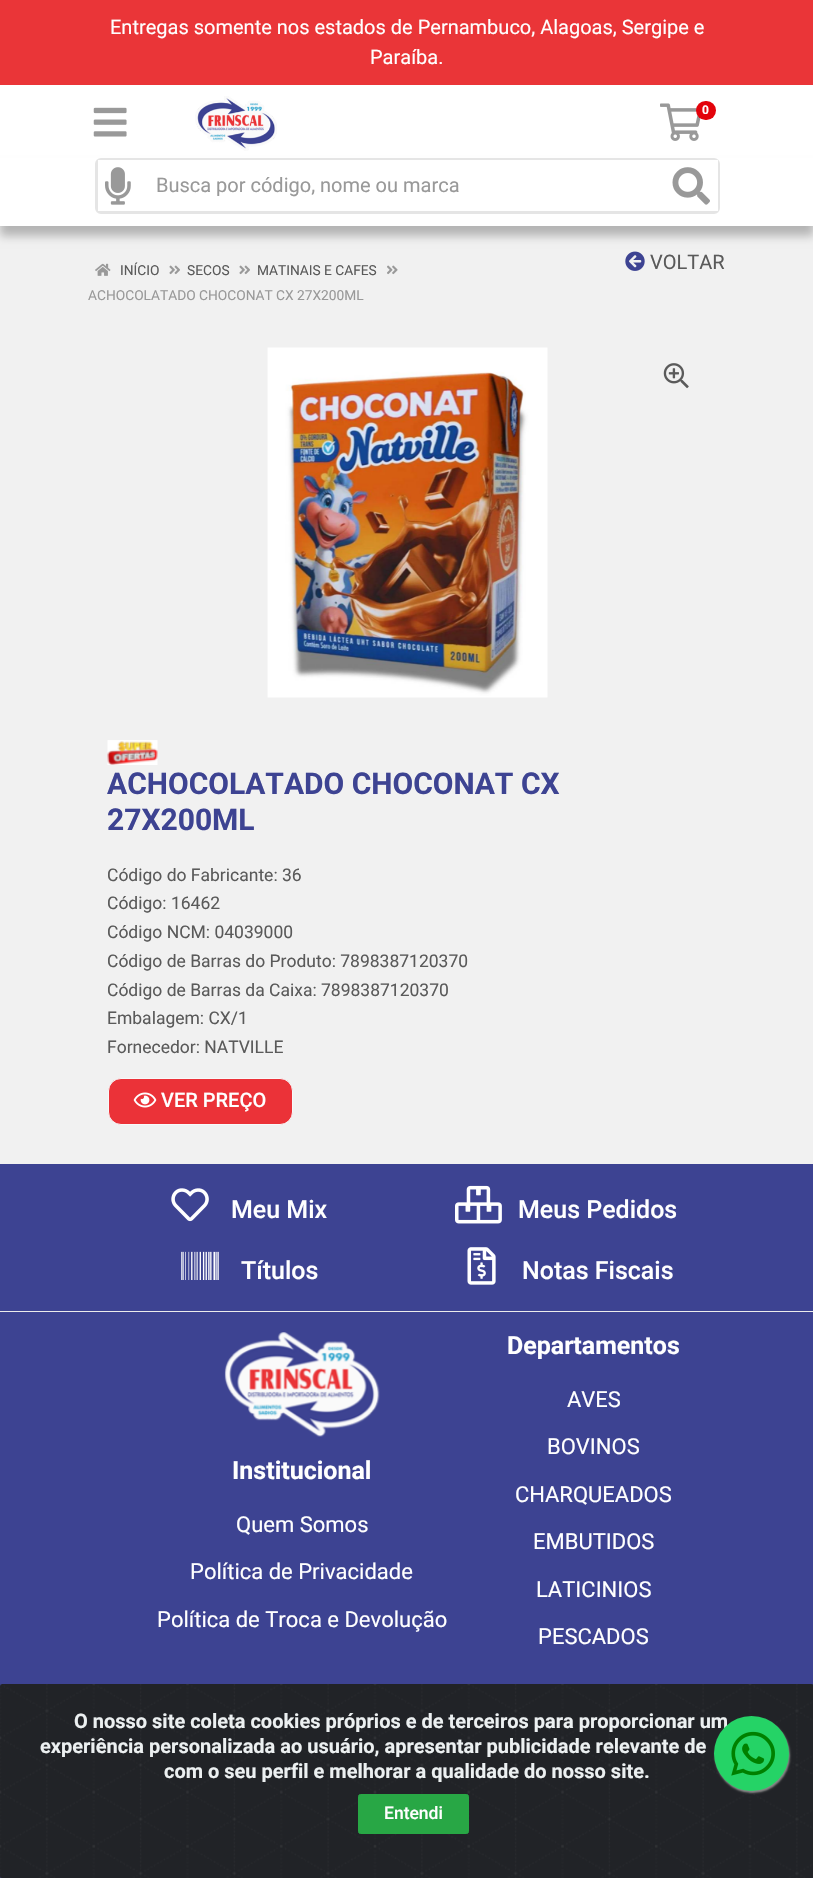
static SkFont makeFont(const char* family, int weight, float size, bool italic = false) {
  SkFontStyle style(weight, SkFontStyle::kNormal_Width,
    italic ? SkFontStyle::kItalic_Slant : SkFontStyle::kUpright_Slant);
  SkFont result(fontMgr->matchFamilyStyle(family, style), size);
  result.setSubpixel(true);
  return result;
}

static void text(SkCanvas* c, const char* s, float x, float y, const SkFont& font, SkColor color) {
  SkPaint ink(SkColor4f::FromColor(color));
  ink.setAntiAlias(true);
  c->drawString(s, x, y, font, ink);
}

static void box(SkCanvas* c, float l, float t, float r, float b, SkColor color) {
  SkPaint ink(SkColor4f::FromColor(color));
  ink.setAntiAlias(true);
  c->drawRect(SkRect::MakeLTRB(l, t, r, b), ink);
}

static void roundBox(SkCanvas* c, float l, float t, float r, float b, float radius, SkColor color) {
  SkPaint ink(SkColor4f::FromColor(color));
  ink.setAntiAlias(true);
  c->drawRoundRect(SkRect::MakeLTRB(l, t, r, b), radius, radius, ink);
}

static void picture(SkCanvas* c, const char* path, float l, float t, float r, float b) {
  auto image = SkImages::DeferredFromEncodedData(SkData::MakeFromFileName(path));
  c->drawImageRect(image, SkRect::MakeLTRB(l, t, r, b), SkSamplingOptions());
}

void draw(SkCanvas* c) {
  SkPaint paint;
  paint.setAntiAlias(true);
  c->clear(0xfff1f1f1);
  box(c, 0, 0, 813, 85, 0xffea3538);
  SkFont face1 = makeFont("Roboto", 400, 20);
  text(c, "Entregas somente nos estados de Pernambuco, Alagoas, Sergipe e", 110, 34, face1, 0xffffffff);
  text(c, "Paraíba.", 370, 64, face1, 0xffffffff);
  box(c, 0, 85, 813, 158, 0xffffffff);
  picture(c, "img_01.png", 93, 107, 127, 137);
  picture(c, "img_02.png", 195, 96, 277, 151);
  picture(c, "img_03.png", 660, 103, 701, 141);
  roundBox(c, 696, 101, 716, 120, 9.5f, 0xffe3030b);
  SkFont face2 = makeFont("Roboto", 700, 12);
  text(c, "0", 702, 114, face2, 0xffffffff);
  paint.setColor(0x40000000);
  paint.setMaskFilter(SkMaskFilter::MakeBlur(kNormal_SkBlurStyle, 4.5f));
  c->drawRect(SkRect::MakeLTRB(0, 168, 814, 236), paint);
  paint.setMaskFilter(nullptr);
  box(c, 0, 158, 813, 226, 0xffffffff);
  paint.setStyle(SkPaint::kStroke_Style);
  paint.setStrokeWidth(3);
  paint.setColor(0xffe5e5e5);
  c->drawRoundRect(SkRect::MakeLTRB(96.5f, 159.5f, 718.5f, 212.5f), 4.5f, 4.5f, paint);
  box(c, 98, 160, 138, 211, 0xffffffff);
  picture(c, "img_04.png", 105, 167, 131, 205);
  box(c, 138, 160, 665, 161, 0xffffffff);
  text(c, "Busca por código, nome ou marca", 156, 192, face1, 0xff999999);
  box(c, 665, 160, 718, 211, 0xffffffff);
  picture(c, "img_05.png", 672, 167, 710, 205);
  picture(c, "img_06.png", 95, 263, 111, 276);
  SkFont face3 = makeFont("Roboto", 400, 13.75f);
  text(c, "INÍCIO", 120, 275, face3, 0xff5a5a5a);
  picture(c, "img_07.png", 169, 265, 180, 275);
  text(c, "SECOS", 187, 275, face3, 0xff5a5a5a);
  picture(c, "img_07.png", 239, 265, 250, 275);
  text(c, "MATINAIS E CAFES", 257, 275, face3, 0xff5a5a5a);
  picture(c, "img_08.png", 387, 265, 398, 275);
  text(c, "ACHOCOLATADO CHOCONAT CX 27X200ML", 88, 300, face3, 0xff999999);
  picture(c, "img_09.png", 625, 251, 645, 271);
  text(c, "VOLTAR", 650, 269, face1, 0xff5a5a5a);
  picture(c, "img_10.png", 267, 347, 548, 698);
  picture(c, "img_11.png", 663, 363, 689, 389);
  picture(c, "img_12.png", 107, 740, 158, 765);
  SkFont face4 = makeFont("Roboto", 700, 30);
  text(c, "ACHOCOLATADO CHOCONAT CX", 107, 794, face4, 0xff3d4392);
  text(c, "27X200ML", 107, 830, face4, 0xff3d4392);
  SkFont face5 = makeFont("Roboto", 400, 17.5f);
  text(c, "Código do Fabricante: 36", 107, 881, face5, 0xff5a5a5a);
  text(c, "Código: 16462", 107, 909, face5, 0xff5a5a5a);
  text(c, "Código NCM: 04039000", 107, 938, face5, 0xff5a5a5a);
  text(c, "Código de Barras do Produto: 7898387120370", 107, 967, face5, 0xff5a5a5a);
  text(c, "Código de Barras da Caixa: 7898387120370", 107, 996, face5, 0xff5a5a5a);
  text(c, "Embalagem: CX/1", 107, 1024, face5, 0xff5a5a5a);
  text(c, "Fornecedor: NATVILLE", 107, 1053, face5, 0xff5a5a5a);
  paint.setStyle(SkPaint::kFill_Style);
  paint.setColor(0xffeb3238);
  c->drawRoundRect(SkRect::MakeLTRB(108.5f, 1078.5f, 292.5f, 1124.5f), 12.5f, 12.5f, paint);
  paint.setStyle(SkPaint::kStroke_Style);
  paint.setStrokeWidth(1);
  paint.setColor(0xfff8f9fa);
  c->drawRoundRect(SkRect::MakeLTRB(108.5f, 1078.5f, 292.5f, 1124.5f), 12.5f, 12.5f, paint);
  picture(c, "img_13.png", 133, 1092, 157, 1108);
  SkFont face6 = makeFont("Roboto", 500, 20);
  text(c, "VER PREÇO", 161, 1107, face6, 0xffffffff);
  box(c, 0, 1164, 813, 1311, 0xff3d4392);
  picture(c, "img_14.png", 171, 1188, 209, 1222);
  SkFont face7 = makeFont("Roboto", 500, 25);
  text(c, "Meu Mix", 231, 1218, face7, 0xffffffff);
  picture(c, "img_15.png", 455, 1185, 502, 1224);
  text(c, "Meus Pedidos", 518, 1218, face7, 0xffffffff);
  picture(c, "img_16.png", 181, 1251, 219, 1280);
  text(c, "Títulos", 241, 1279, face7, 0xffffffff);
  picture(c, "img_17.png", 467, 1247, 496, 1285);
  text(c, "Notas Fiscais", 522, 1279, face7, 0xffffffff);
  box(c, 0, 1312, 813, 1878, 0xff3d4392);
  box(c, 0, 1311, 813, 1312, 0xffebebeb);
  picture(c, "img_18.png", 224, 1332, 380, 1437);
  SkFont face8 = makeFont("Roboto", 700, 25);
  text(c, "Institucional", 232, 1479, face8, 0xffffffff);
  SkFont face9 = makeFont("Roboto", 400, 22);
  text(c, "Quem Somos", 236, 1532, face9, 0xffffffff);
  text(c, "Política de Privacidade", 190, 1579, face9, 0xffffffff);
  text(c, "Política de Troca e Devolução", 157, 1627, face9, 0xffffffff);
  text(c, "Departamentos", 507, 1354, face8, 0xffffffff);
  text(c, "AVES", 567, 1407, face9, 0xffffffff);
  text(c, "BOVINOS", 547, 1454, face9, 0xffffffff);
  text(c, "CHARQUEADOS", 515, 1502, face9, 0xffffffff);
  text(c, "EMBUTIDOS", 533, 1549, face9, 0xffffffff);
  text(c, "LATICINIOS", 536, 1597, face9, 0xffffffff);
  text(c, "PESCADOS", 538, 1644, face9, 0xffffffff);
  picture(c, "img_19.png", 0, 1684, 813, 1878);
  SkFont face10 = makeFont("Roboto", 700, 20);
  text(c, "O nosso site coleta cookies próprios e de terceiros para proporcionar um", 74, 1728, face10, 0xffecf0f1);
  text(c, "experiência personalizada ao usuário, apresentar publicidade relevante de", 40, 1753, face10, 0xffecf0f1);
  text(c, "com o seu perfil e melhorar a qualidade do nosso site.", 164, 1778, face10, 0xffecf0f1);
  paint.setStyle(SkPaint::kFill_Style);
  paint.setColor(0xff28a745);
  c->drawRoundRect(SkRect::MakeLTRB(358.5f, 1794.5f, 468.5f, 1833.5f), 2, 2, paint);
  paint.setStyle(SkPaint::kStroke_Style);
  c->drawRoundRect(SkRect::MakeLTRB(358.5f, 1794.5f, 468.5f, 1833.5f), 2, 2, paint);
  SkFont face11 = makeFont("Roboto", 500, 17.5f);
  text(c, "Entendi", 384, 1819, face11, 0xffffffff);
  paint.setStyle(SkPaint::kFill_Style);
  paint.setColor(0xff888888);
  paint.setMaskFilter(SkMaskFilter::MakeBlur(kNormal_SkBlurStyle, 1));
  c->drawRoundRect(SkRect::MakeLTRB(715, 1718, 790, 1793), 37.5f, 37.5f, paint);
  paint.setMaskFilter(nullptr);
  paint.setColor(0xff25d366);
  c->drawCircle(751.5f, 1753.5f, 37.5f, paint);
  picture(c, "img_20.png", 731, 1731, 775, 1776);
}
